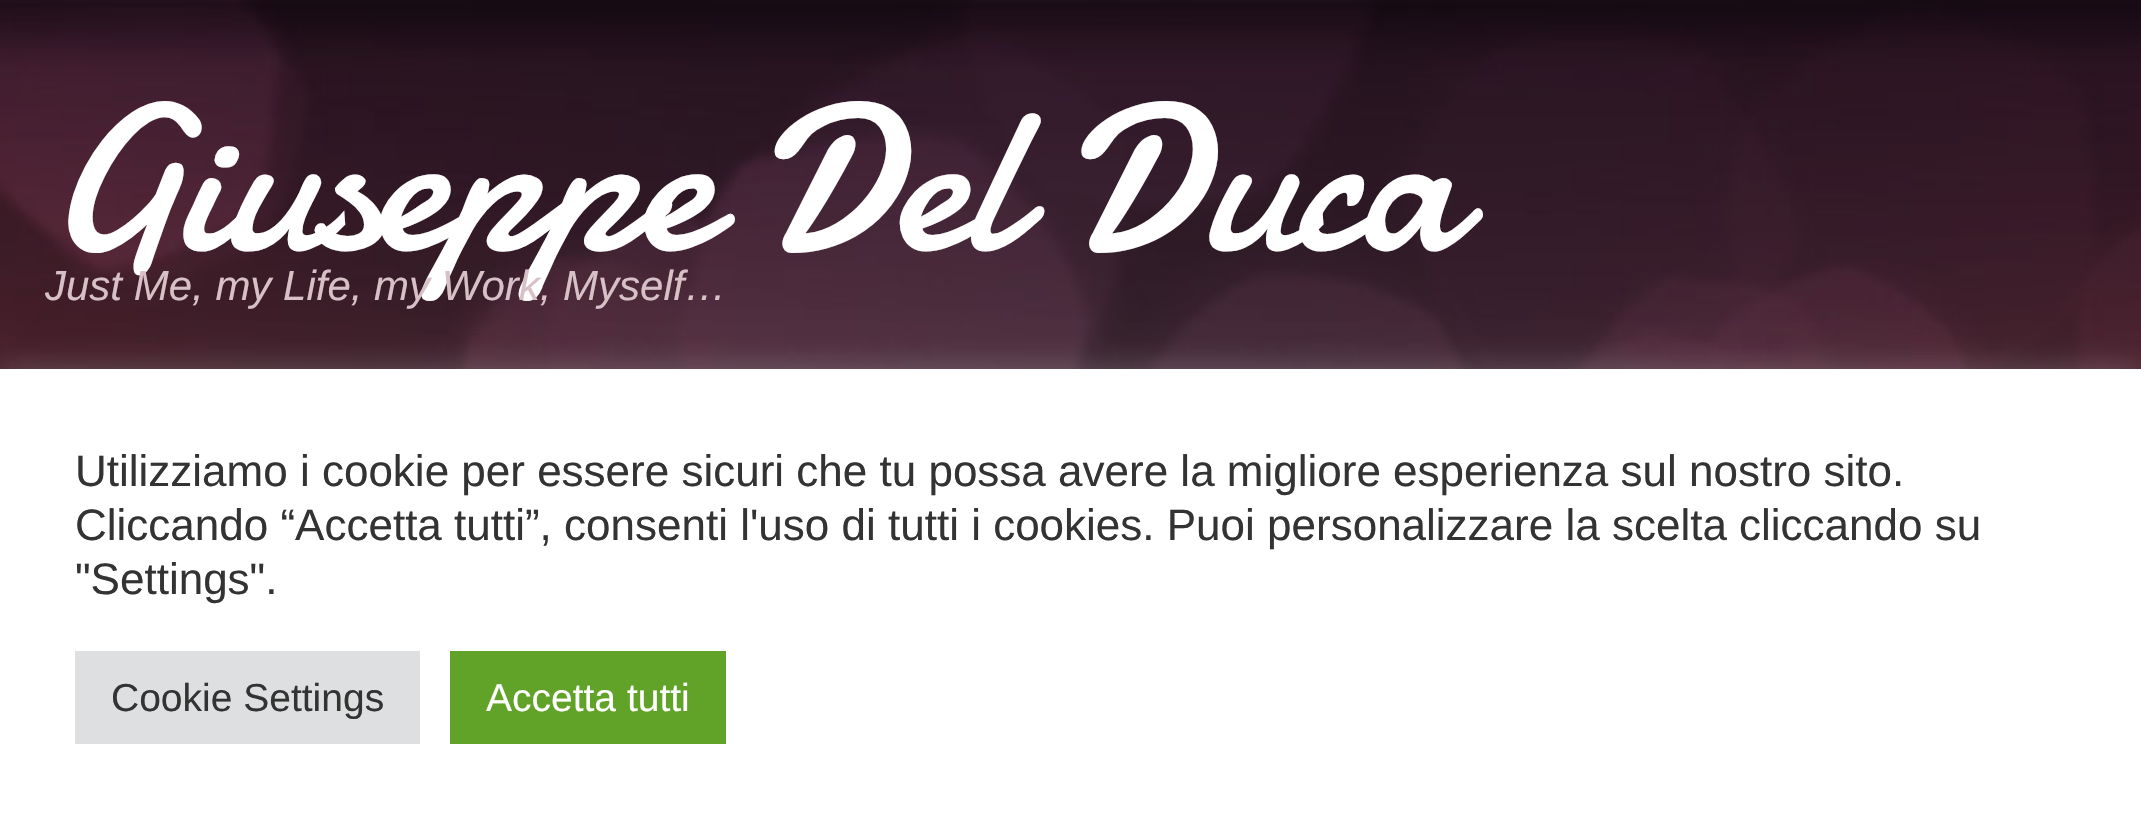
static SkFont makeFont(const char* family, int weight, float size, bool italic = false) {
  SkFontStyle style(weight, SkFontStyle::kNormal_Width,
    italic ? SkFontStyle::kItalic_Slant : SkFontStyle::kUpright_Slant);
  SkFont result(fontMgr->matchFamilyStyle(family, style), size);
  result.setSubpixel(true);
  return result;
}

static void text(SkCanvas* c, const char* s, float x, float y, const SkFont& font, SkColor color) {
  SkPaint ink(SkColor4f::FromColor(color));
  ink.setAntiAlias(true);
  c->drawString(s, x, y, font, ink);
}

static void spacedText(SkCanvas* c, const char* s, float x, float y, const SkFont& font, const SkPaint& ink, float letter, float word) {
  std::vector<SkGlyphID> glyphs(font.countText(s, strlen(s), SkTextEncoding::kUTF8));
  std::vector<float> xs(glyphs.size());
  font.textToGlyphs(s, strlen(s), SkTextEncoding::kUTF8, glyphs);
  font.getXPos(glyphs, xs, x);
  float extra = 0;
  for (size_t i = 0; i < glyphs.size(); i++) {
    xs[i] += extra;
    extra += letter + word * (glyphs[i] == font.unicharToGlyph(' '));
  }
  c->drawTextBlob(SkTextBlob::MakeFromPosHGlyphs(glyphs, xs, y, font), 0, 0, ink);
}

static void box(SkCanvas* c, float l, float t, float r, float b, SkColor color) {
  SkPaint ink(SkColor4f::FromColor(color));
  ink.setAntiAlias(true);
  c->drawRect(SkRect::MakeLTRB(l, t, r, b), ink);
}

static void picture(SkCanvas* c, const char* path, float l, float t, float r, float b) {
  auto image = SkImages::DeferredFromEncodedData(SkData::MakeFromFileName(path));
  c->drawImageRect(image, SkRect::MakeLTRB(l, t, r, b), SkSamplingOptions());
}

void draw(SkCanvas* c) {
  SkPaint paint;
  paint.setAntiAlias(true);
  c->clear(0xffffffff);
  picture(c, "img_01.png", 0, 0, 2141, 369);
  SkFont face1 = makeFont("Damion", 400, 210);
  paint.setColor(0xffffffff);
  spacedText(c, "Giuseppe Del Duca", 45, 249, face1, paint, -3, 0);
  SkFont face2 = makeFont("Liberation Sans", 400, 42, true);
  text(c, "Just Me, my Life, my Work, Myself…", 45, 300, face2, 0xffd7c1c6);
  paint.setColor(0x4dacabab);
  paint.setMaskFilter(SkMaskFilter::MakeBlur(kNormal_SkBlurStyle, 15));
  c->drawRect(SkRect::MakeLTRB(0, 366, 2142, 831), paint);
  paint.setMaskFilter(nullptr);
  box(c, 0, 369, 2141, 832, 0xffffffff);
  SkFont face3 = makeFont("Liberation Sans", 400, 44);
  text(c, "Utilizziamo i cookie per essere sicuri che tu possa avere la migliore esperienza sul nostro sito.", 75, 486, face3, 0xff333333);
  text(c, "Cliccando “Accetta tutti”, consenti l'uso di tutti i cookies. Puoi personalizzare la scelta cliccando su", 75, 540, face3, 0xff333333);
  text(c, "\"Settings\".", 75, 594, face3, 0xff333333);
  box(c, 75, 651, 420, 744, 0xffdedfe0);
  SkFont face4 = makeFont("Liberation Sans", 400, 39);
  text(c, "Cookie Settings", 111, 711, face4, 0xff333333);
  box(c, 450, 651, 726, 744, 0xff61a229);
  text(c, "Accetta tutti", 486, 711, face4, 0xffffffff);
}
